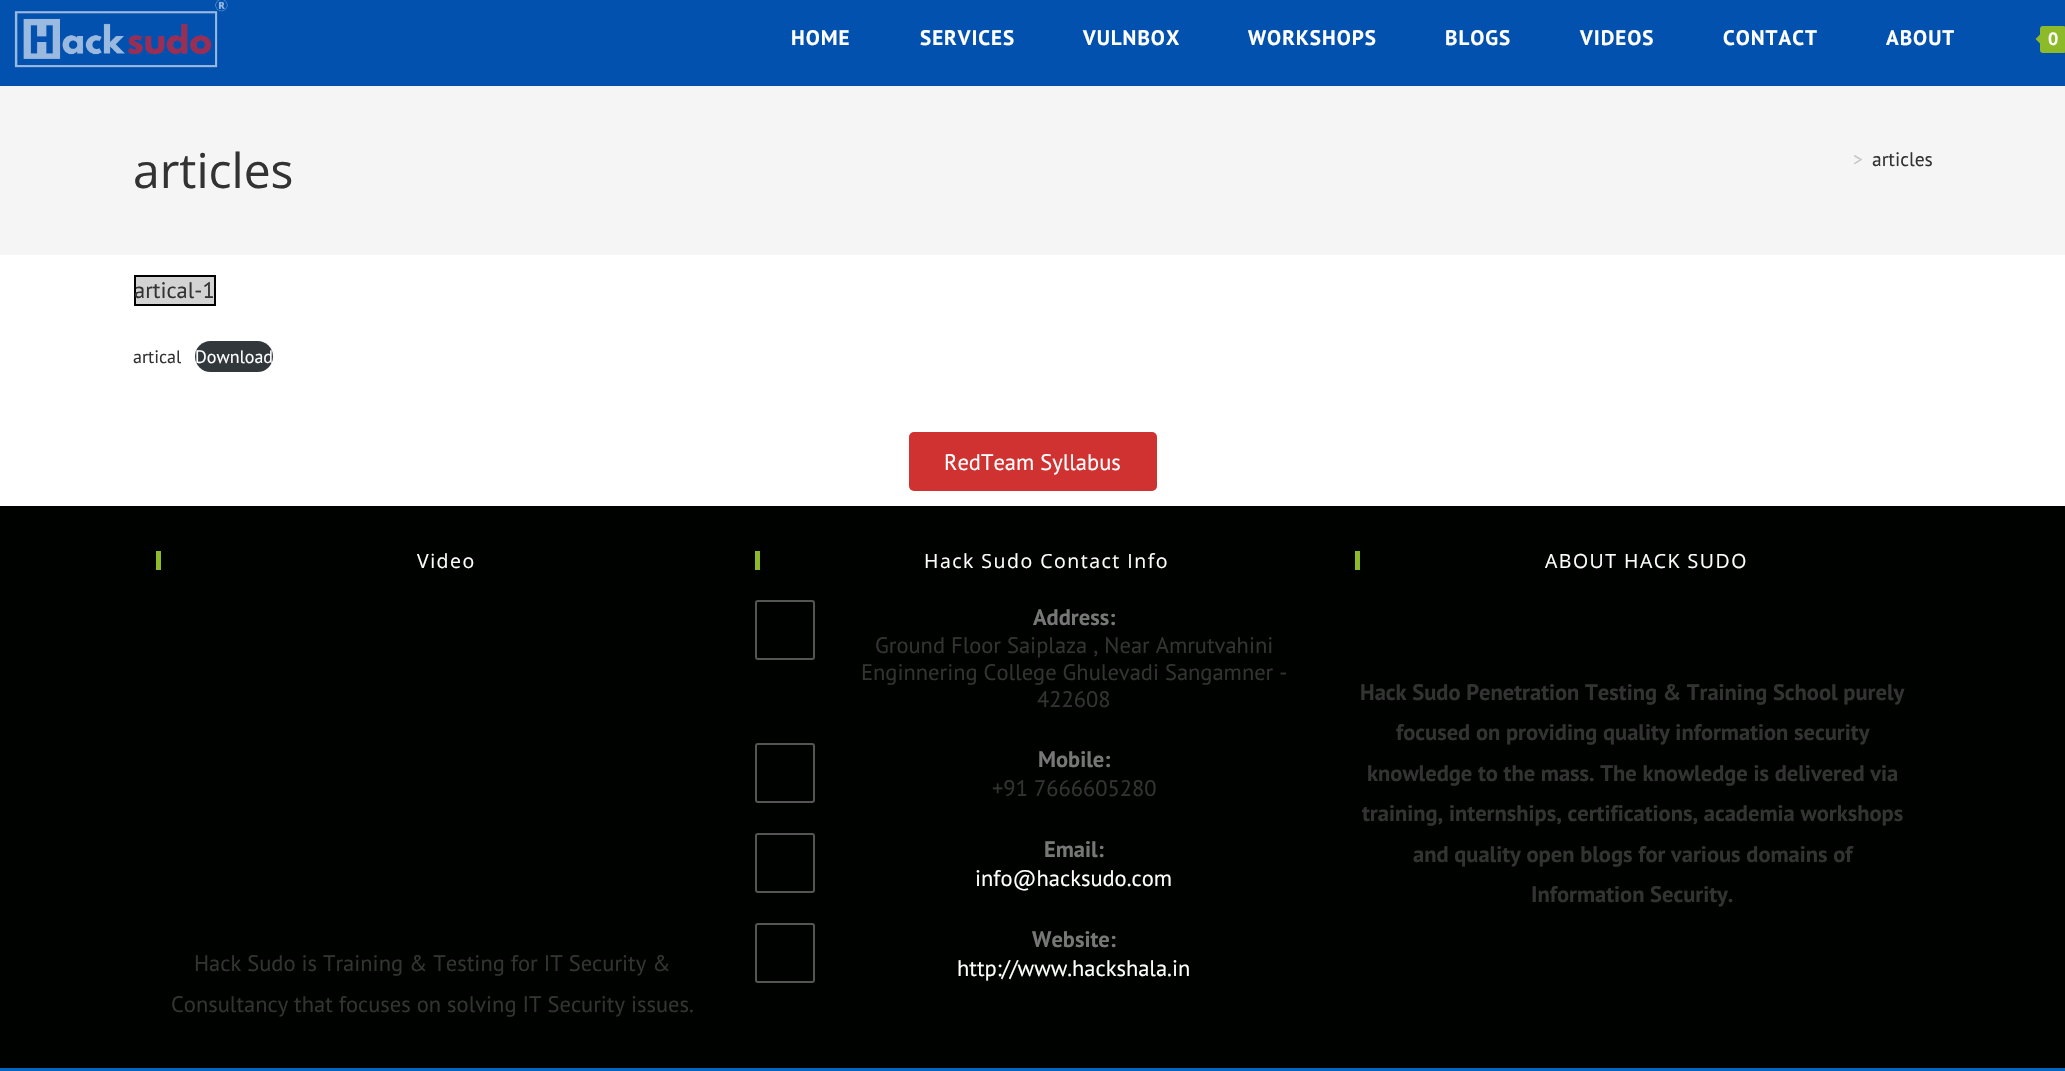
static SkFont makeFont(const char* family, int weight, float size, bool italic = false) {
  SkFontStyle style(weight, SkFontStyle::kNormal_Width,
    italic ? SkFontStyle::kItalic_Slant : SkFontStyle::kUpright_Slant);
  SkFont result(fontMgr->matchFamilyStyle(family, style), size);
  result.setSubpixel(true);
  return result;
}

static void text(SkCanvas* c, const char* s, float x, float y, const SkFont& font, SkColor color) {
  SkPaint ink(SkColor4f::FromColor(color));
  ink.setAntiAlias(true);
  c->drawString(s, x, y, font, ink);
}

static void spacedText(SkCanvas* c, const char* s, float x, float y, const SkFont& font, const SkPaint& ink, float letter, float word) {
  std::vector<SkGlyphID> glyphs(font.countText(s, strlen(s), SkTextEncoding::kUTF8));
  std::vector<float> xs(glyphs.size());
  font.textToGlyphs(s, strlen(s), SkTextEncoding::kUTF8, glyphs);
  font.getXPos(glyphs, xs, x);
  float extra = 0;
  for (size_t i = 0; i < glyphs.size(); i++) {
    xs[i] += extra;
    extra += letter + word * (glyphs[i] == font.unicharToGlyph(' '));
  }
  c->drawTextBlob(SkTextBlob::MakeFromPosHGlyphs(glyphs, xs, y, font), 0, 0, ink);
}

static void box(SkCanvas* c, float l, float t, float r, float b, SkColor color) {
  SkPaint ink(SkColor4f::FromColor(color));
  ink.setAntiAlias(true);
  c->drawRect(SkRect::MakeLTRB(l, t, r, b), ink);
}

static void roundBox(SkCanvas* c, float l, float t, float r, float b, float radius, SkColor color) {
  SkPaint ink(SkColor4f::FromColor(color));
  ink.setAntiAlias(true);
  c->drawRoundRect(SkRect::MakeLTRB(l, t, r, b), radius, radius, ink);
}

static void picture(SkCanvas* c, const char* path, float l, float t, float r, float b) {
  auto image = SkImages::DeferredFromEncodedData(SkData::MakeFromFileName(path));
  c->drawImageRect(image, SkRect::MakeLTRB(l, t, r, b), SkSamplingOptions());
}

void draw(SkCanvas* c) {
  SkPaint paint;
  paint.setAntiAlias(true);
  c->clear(0xffffffff);
  box(c, 0, 0, 2065, 86, 0xff0351af);
  picture(c, "img_01.png", 14, 0, 228, 68);
  SkFont face1 = makeFont("PT Sans", 700, 21);
  paint.setColor(0xffffffff);
  spacedText(c, "HOME", 791, 45, face1, paint, 1, 0);
  spacedText(c, "SERVICES", 920, 45, face1, paint, 1, 0);
  spacedText(c, "VULNBOX", 1083, 45, face1, paint, 1, 0);
  spacedText(c, "WORKSHOPS", 1248, 45, face1, paint, 1, 0);
  spacedText(c, "BLOGS", 1445, 45, face1, paint, 1, 0);
  spacedText(c, "VIDEOS", 1580, 45, face1, paint, 1, 0);
  spacedText(c, "CONTACT", 1723, 45, face1, paint, 1, 0);
  spacedText(c, "ABOUT", 1886, 45, face1, paint, 1, 0);
  roundBox(c, 2040, 26, 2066, 53, 3, 0xff8cba29);
  paint.setColor(0xff8cba29);
  c->drawPath(SkPathBuilder().moveTo(2043, 31.5f).lineTo(2043, 46.5f).lineTo(2035.5f, 39).close().detach(), paint);
  SkFont face2 = makeFont("PT Sans", 700, 18);
  text(c, "0", 2048, 45, face2, 0xffffffff);
  box(c, 0, 86, 2065, 255, 0xfff5f5f5);
  SkFont face3 = makeFont("Open Sans", 400, 48);
  text(c, "articles", 133, 188, face3, 0xff333333);
  SkFont face4 = makeFont("PT Sans", 400, 19.5f);
  text(c, ">", 1853, 166, face4, 0xffc6c6c6);
  text(c, "articles", 1872, 166, face4, 0xff333333);
  paint.setColor(0xffd3d3d3);
  c->drawRect(SkRect::MakeLTRB(135, 276, 215, 305), paint);
  paint.setStyle(SkPaint::kStroke_Style);
  paint.setStrokeWidth(2);
  paint.setColor(0xff000000);
  c->drawRect(SkRect::MakeLTRB(135, 276, 215, 305), paint);
  SkFont face5 = makeFont("PT Sans", 400, 22.5f);
  text(c, "artical-1", 134, 298, face5, 0xff333333);
  SkFont face6 = makeFont("PT Sans", 400, 18);
  text(c, "artical", 133, 363, face6, 0xff333333);
  roundBox(c, 195, 341, 273, 372, 15.5f, 0xff32373c);
  text(c, "Download", 195, 363, face6, 0xffffffff);
  roundBox(c, 909, 432, 1157, 491, 5, 0xffd03131);
  text(c, "RedTeam Syllabus", 944, 470, face5, 0xffffffff);
  box(c, 0, 506, 2065, 1068, 0xff000200);
  box(c, 156, 551, 161, 570, 0xff8cba29);
  SkFont face7 = makeFont("Open Sans", 400, 19.5f);
  paint.setStyle(SkPaint::kFill_Style);
  paint.setColor(0xffffffff);
  spacedText(c, "Video", 417, 568, face7, paint, 1.5f, 0);
  text(c, "Hack Sudo is Training & Testing for IT Security &", 194, 971, face5, 0xff333333);
  text(c, "Consultancy that focuses on solving IT Security issues.", 171, 1012, face5, 0xff333333);
  box(c, 755, 551, 760, 570, 0xff8cba29);
  spacedText(c, "Hack Sudo Contact Info", 924, 568, face7, paint, 1.5f, 0);
  paint.setStyle(SkPaint::kStroke_Style);
  paint.setColor(0xff555555);
  c->drawRoundRect(SkRect::MakeLTRB(756, 601, 814, 659), 2, 2, paint);
  SkFont face8 = makeFont("PT Sans", 700, 22.5f);
  text(c, "Address:", 1033, 625, face8, 0xff777777);
  text(c, "Ground Floor Saiplaza , Near Amrutvahini", 875, 653, face5, 0xff333333);
  text(c, "Enginnering College Ghulevadi Sangamner -", 861, 680, face5, 0xff333333);
  text(c, "422608", 1037, 707, face5, 0xff333333);
  c->drawRoundRect(SkRect::MakeLTRB(756, 744, 814, 802), 2, 2, paint);
  text(c, "Mobile:", 1038, 767, face8, 0xff777777);
  text(c, "+91 7666605280", 992, 796, face5, 0xff333333);
  c->drawRoundRect(SkRect::MakeLTRB(756, 834, 814, 892), 2, 2, paint);
  text(c, "Email:", 1044, 857, face8, 0xff777777);
  text(c, "info@hacksudo.com", 975, 886, face5, 0xffffffff);
  c->drawRoundRect(SkRect::MakeLTRB(756, 924, 814, 982), 2, 2, paint);
  text(c, "Website:", 1032, 947, face8, 0xff777777);
  text(c, "http://www.hackshala.in", 957, 976, face5, 0xffffffff);
  box(c, 1355, 551, 1360, 570, 0xff8cba29);
  paint.setStyle(SkPaint::kFill_Style);
  paint.setColor(0xffffffff);
  spacedText(c, "ABOUT HACK SUDO", 1545, 568, face7, paint, 1.5f, 0);
  text(c, "Hack Sudo Penetration Testing & Training School purely", 1360, 700, face8, 0xff333333);
  text(c, "focused on providing quality information security", 1396, 740, face8, 0xff333333);
  text(c, "knowledge to the mass. The knowledge is delivered via", 1367, 781, face8, 0xff333333);
  text(c, "training, internships, certifications, academia workshops", 1362, 821, face8, 0xff333333);
  text(c, "and quality open blogs for various domains of", 1413, 862, face8, 0xff333333);
  text(c, "Information Security.", 1531, 902, face8, 0xff333333);
  box(c, 0, 1068, 2065, 1071, 0xff0066bf);
}
